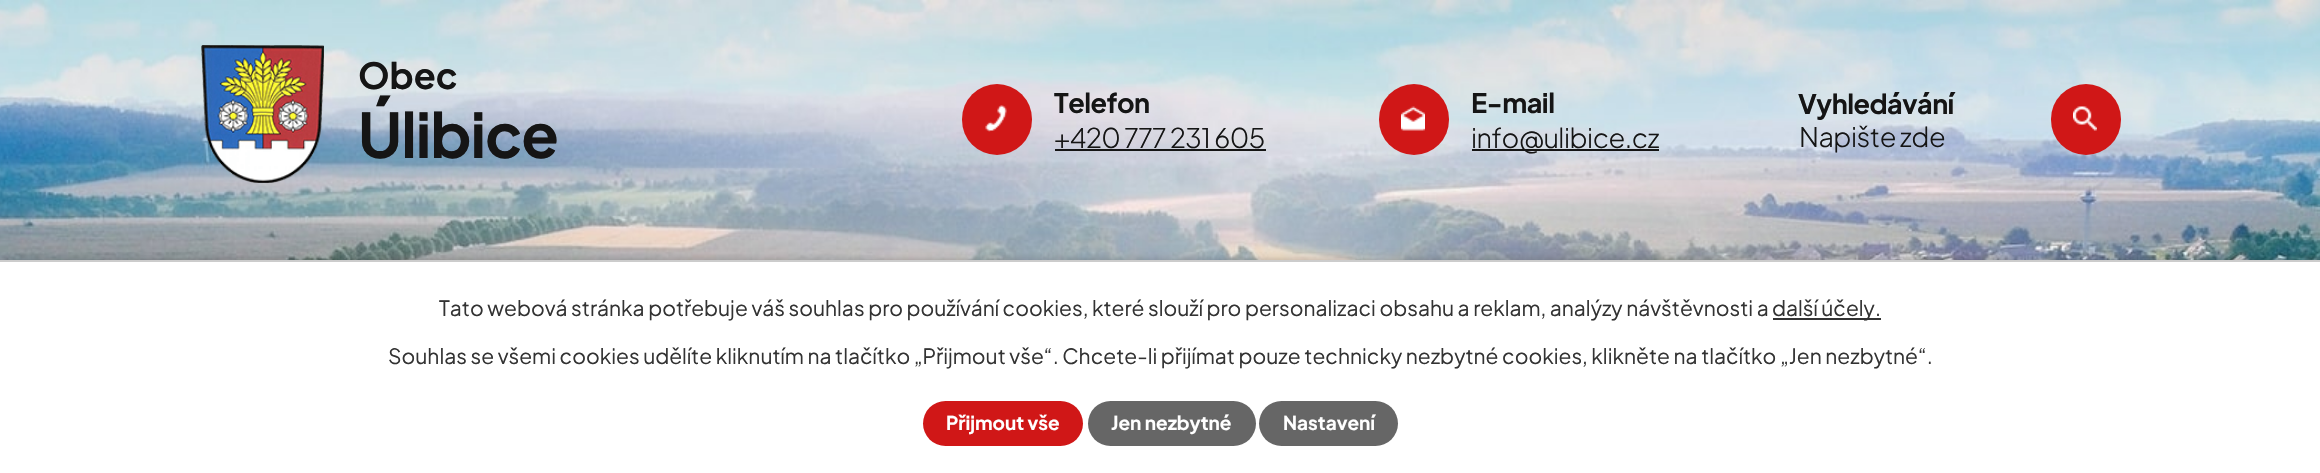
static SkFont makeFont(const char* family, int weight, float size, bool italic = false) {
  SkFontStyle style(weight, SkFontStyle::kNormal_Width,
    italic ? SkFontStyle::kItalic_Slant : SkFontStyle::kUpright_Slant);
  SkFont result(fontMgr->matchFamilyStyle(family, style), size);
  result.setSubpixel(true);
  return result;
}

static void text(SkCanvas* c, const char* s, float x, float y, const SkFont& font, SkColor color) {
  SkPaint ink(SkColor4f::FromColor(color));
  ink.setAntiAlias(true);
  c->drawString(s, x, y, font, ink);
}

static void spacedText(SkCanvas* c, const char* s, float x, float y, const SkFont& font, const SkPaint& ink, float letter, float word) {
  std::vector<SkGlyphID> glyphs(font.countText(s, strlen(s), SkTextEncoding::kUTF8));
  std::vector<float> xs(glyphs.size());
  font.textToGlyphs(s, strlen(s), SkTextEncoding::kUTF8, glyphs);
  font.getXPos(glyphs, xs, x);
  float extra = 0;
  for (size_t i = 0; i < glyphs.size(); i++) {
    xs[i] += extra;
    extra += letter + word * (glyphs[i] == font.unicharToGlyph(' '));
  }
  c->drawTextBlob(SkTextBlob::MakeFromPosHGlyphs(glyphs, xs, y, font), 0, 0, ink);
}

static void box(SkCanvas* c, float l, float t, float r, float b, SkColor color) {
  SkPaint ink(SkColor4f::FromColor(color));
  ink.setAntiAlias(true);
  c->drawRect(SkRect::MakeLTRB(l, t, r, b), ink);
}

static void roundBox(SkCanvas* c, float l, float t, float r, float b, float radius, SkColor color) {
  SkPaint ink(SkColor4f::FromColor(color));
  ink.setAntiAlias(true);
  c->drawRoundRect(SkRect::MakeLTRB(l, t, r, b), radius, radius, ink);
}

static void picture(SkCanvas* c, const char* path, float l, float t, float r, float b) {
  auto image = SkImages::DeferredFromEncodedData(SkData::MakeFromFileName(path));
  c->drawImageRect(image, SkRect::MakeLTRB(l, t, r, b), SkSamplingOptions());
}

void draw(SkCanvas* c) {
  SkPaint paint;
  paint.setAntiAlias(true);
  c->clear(0xffffffff);
  picture(c, "img_01.png", 0, 0, 2320, 260);
  picture(c, "img_02.png", 201, 45, 324, 183);
  SkFont face1 = makeFont("Plus Jakarta Sans", 700, 36);
  text(c, "Obec", 358, 89, face1, 0xff151515);
  SkFont face2 = makeFont("Plus Jakarta Sans", 700, 61.5f);
  paint.setColor(0xff151515);
  spacedText(c, "Úlibice", 358, 158, face2, paint, -1, 0);
  roundBox(c, 962, 84, 1032, 155, 35, 0xffd01717);
  picture(c, "img_03.png", 985, 105, 1007, 132);
  SkFont face3 = makeFont("Plus Jakarta Sans", 700, 27);
  spacedText(c, "Telefon", 1054, 113, face3, paint, -0.5f, 0);
  SkFont face4 = makeFont("Plus Jakarta Sans", 300, 27);
  spacedText(c, "+420 777 231 605", 1054, 148, face4, paint, -0.5f, 0);
  box(c, 1055, 149, 1266, 151, 0xff151515);
  roundBox(c, 1379, 84, 1449, 155, 35, 0xffd01717);
  picture(c, "img_04.png", 1401, 106, 1425, 131);
  spacedText(c, "E-mail", 1471, 113, face3, paint, -0.5f, 0);
  box(c, 1472, 149, 1659, 151, 0xff151515);
  spacedText(c, "info@ulibice.cz", 1471, 148, face4, paint, -0.5f, 0);
  spacedText(c, "Vyhledávání", 1798, 114, face3, paint, -0.5f, 0);
  spacedText(c, "Napište zde", 1799, 147, face4, paint, -0.5f, 0);
  roundBox(c, 2051, 84, 2121, 155, 35, 0xffd01717);
  picture(c, "img_05.png", 2073, 106, 2097, 131);
  paint.setColor(0x33000000);
  paint.setMaskFilter(SkMaskFilter::MakeBlur(kNormal_SkBlurStyle, 4));
  c->drawRect(SkRect::MakeLTRB(0, 260, 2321, 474), paint);
  paint.setMaskFilter(nullptr);
  box(c, 0, 262, 2320, 473, 0xffffffff);
  box(c, 0, 260, 2320, 262, 0xffcccccc);
  SkFont face5 = makeFont("Plus Jakarta Sans", 400, 21);
  text(c, "Tato webová stránka potřebuje váš souhlas pro používání cookies, které slouží pro personalizaci obsahu a reklam, analýzy návštěvnosti a", 439, 316, face5, 0xff333333);
  box(c, 1773, 318, 1881, 320, 0xff333333);
  text(c, "další účely.", 1772, 316, face5, 0xff333333);
  text(c, "Souhlas se všemi cookies udělíte kliknutím na tlačítko „Přijmout vše“. Chcete-li přijímat pouze technicky nezbytné cookies, klikněte na tlačítko „Jen nezbytné“.", 388, 364, face5, 0xff333333);
  roundBox(c, 923, 401, 1083, 446, 22.5f, 0xffd01717);
  SkFont face6 = makeFont("Plus Jakarta Sans", 700, 19);
  text(c, "Přijmout vše", 946, 430, face6, 0xffffffff);
  roundBox(c, 1088, 401, 1256, 446, 22.5f, 0xff666666);
  text(c, "Jen nezbytné", 1111, 430, face6, 0xffffffff);
  roundBox(c, 1259, 401, 1398, 446, 22.5f, 0xff666666);
  text(c, "Nastavení", 1283, 430, face6, 0xffffffff);
}
